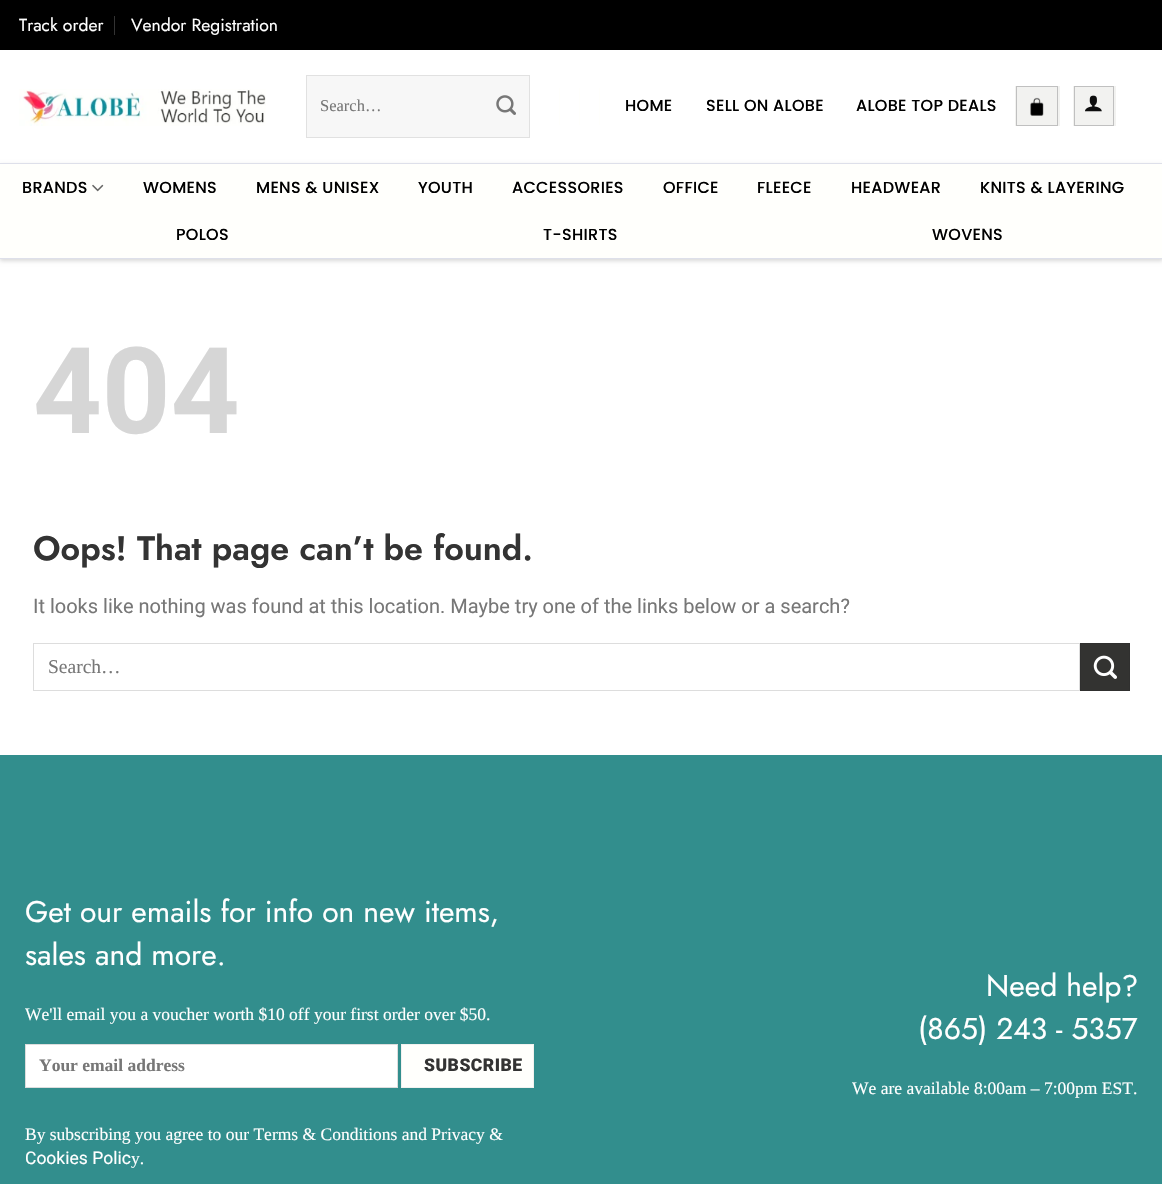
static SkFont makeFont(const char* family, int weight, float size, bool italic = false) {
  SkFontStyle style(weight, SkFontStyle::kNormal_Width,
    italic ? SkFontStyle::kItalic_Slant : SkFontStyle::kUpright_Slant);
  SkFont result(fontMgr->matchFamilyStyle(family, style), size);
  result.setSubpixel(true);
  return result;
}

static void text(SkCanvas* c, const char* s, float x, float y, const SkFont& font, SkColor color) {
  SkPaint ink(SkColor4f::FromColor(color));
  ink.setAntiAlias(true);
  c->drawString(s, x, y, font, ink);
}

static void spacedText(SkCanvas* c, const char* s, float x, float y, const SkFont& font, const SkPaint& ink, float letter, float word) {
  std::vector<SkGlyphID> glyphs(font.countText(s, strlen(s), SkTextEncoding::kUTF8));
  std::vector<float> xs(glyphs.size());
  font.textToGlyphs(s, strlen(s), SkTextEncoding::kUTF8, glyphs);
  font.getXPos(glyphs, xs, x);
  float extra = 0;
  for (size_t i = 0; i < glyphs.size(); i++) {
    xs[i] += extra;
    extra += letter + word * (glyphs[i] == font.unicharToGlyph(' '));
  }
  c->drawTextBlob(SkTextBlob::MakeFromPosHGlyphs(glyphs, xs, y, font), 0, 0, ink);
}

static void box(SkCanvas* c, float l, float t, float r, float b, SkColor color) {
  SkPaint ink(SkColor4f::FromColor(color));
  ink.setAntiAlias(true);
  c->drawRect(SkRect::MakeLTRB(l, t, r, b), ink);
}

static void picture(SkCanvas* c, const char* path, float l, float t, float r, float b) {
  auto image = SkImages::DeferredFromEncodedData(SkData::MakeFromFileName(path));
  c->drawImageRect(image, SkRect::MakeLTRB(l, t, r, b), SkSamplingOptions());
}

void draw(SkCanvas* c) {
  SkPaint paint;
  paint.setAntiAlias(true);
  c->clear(0xffffffff);
  box(c, 0, 0, 1162, 50, 0xff000000);
  SkFont face1 = makeFont("Jost", 400, 17.5f);
  text(c, "Track order", 19, 31, face1, 0xffffffff);
  box(c, 114, 16, 115, 35, 0xff333333);
  text(c, "Vendor Registration", 131, 31, face1, 0xffffffff);
  picture(c, "img_01.png", 19, 89, 266, 126);
  paint.setColor(0xfff7f7f7);
  c->drawRect(SkRect::MakeLTRB(306.5f, 75.5f, 529.5f, 137.5f), paint);
  paint.setStyle(SkPaint::kStroke_Style);
  paint.setStrokeWidth(1);
  paint.setColor(0xffe1e1e1);
  c->drawRect(SkRect::MakeLTRB(306.5f, 75.5f, 529.5f, 137.5f), paint);
  SkFont face2 = makeFont("Liberation Serif", 400, 16.5f);
  text(c, "Search…", 320, 111, face2, 0xff777777);
  picture(c, "img_02.png", 496, 95, 516, 115);
  box(c, 559, 88, 560, 125, 0xfffffffc);
  box(c, 579, 88, 580, 125, 0xfffffffc);
  box(c, 599, 88, 600, 125, 0xfffffffc);
  SkFont face3 = makeFont("Poppins", 500, 16);
  paint.setStyle(SkPaint::kFill_Style);
  paint.setColor(0xff000000);
  spacedText(c, "HOME", 625, 111, face3, paint, 0.3f, 0);
  spacedText(c, "SELL ON ALOBE", 706, 111, face3, paint, 0.3f, 0);
  spacedText(c, "ALOBE TOP DEALS", 856, 111, face3, paint, 0.3f, 0);
  box(c, 1015, 86, 1060, 126, 0xfff2f2f0);
  paint.setStyle(SkPaint::kStroke_Style);
  paint.setColor(0xffc0c0c0);
  c->drawRect(SkRect::MakeLTRB(1016.5f, 86.5f, 1057.5f, 125.5f), paint);
  picture(c, "img_03.png", 1030, 97, 1044, 116);
  box(c, 1073, 86, 1116, 126, 0xfff2f2f0);
  c->drawRect(SkRect::MakeLTRB(1074.5f, 86.5f, 1113.5f, 125.5f), paint);
  picture(c, "img_04.png", 1085, 95, 1102, 112);
  paint.setStyle(SkPaint::kFill_Style);
  paint.setColor(0x26000000);
  paint.setMaskFilter(SkMaskFilter::MakeBlur(kNormal_SkBlurStyle, 2));
  c->drawRect(SkRect::MakeLTRB(0, 165, 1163, 261), paint);
  paint.setMaskFilter(nullptr);
  box(c, 0, 164, 1162, 258, 0xfffffffc);
  box(c, 0, 163, 1162, 164, 0xffdee0ea);
  box(c, 0, 258, 1162, 259, 0xffdee0ea);
  paint.setColor(0xff000000);
  spacedText(c, "BRANDS", 22, 193, face3, paint, 0.3f, 0);
  picture(c, "img_05.png", 92, 184, 104, 192);
  spacedText(c, "WOMENS", 143, 193, face3, paint, 0.3f, 0);
  spacedText(c, "MENS & UNISEX", 256, 193, face3, paint, 0.3f, 0);
  spacedText(c, "YOUTH", 418, 193, face3, paint, 0.3f, 0);
  spacedText(c, "ACCESSORIES", 512, 193, face3, paint, 0.3f, 0);
  spacedText(c, "OFFICE", 663, 193, face3, paint, 0.3f, 0);
  spacedText(c, "FLEECE", 757, 193, face3, paint, 0.3f, 0);
  spacedText(c, "HEADWEAR", 851, 193, face3, paint, 0.3f, 0);
  spacedText(c, "KNITS & LAYERING", 980, 193, face3, paint, 0.3f, 0);
  spacedText(c, "POLOS", 176, 240, face3, paint, 0.3f, 0);
  spacedText(c, "T-SHIRTS", 543, 240, face3, paint, 0.3f, 0);
  spacedText(c, "WOVENS", 932, 240, face3, paint, 0.3f, 0);
  SkFont face4 = makeFont("Roboto", 700, 120);
  text(c, "404", 33, 433, face4, 0xffd6d6d6);
  SkFont face5 = makeFont("Jost", 600, 34);
  text(c, "Oops! That page can’t be found.", 33, 560, face5, 0xff333333);
  SkFont face6 = makeFont("Roboto", 400, 20);
  text(c, "It looks like nothing was found at this location. Maybe try one of the links below or a search?", 33, 613, face6, 0xff777777);
  paint.setStyle(SkPaint::kStroke_Style);
  paint.setColor(0xffdddddd);
  c->drawRect(SkRect::MakeLTRB(33.5f, 643.5f, 1079.5f, 690.5f), paint);
  SkFont face7 = makeFont("Liberation Serif", 400, 19.5f);
  text(c, "Search…", 48, 673, face7, 0xff777777);
  paint.setStyle(SkPaint::kFill_Style);
  paint.setColor(0xff333331);
  c->drawRect(SkRect::MakeLTRB(1080.5f, 643.5f, 1129.5f, 690.5f), paint);
  paint.setStyle(SkPaint::kStroke_Style);
  paint.setColor(0xff30302f);
  c->drawRect(SkRect::MakeLTRB(1080.5f, 643.5f, 1129.5f, 690.5f), paint);
  picture(c, "img_06.png", 1093, 655, 1117, 679);
  box(c, 0, 755, 1162, 1184, 0xff328e8d);
  SkFont face8 = makeFont("Jost", 400, 30);
  text(c, "Get our emails for info on new items,", 25, 922, face8, 0xffffffff);
  text(c, "sales and more.", 25, 965, face8, 0xffffffff);
  SkFont face9 = makeFont("Liberation Serif", 400, 17.5f);
  text(c, "We'll email you a voucher worth $10 off your first order over $50.", 25, 1020, face9, 0xffffffff);
  paint.setStyle(SkPaint::kFill_Style);
  paint.setColor(0xffffffff);
  c->drawRect(SkRect::MakeLTRB(25.5f, 1044.5f, 397.5f, 1087.5f), paint);
  paint.setStyle(SkPaint::kStroke_Style);
  paint.setColor(0xffdddddd);
  c->drawRect(SkRect::MakeLTRB(25.5f, 1044.5f, 397.5f, 1087.5f), paint);
  SkFont face10 = makeFont("Liberation Serif", 700, 17.5f);
  text(c, "Your email address", 39, 1071, face10, 0xff777777);
  paint.setStyle(SkPaint::kFill_Style);
  paint.setColor(0xfffffffc);
  c->drawRect(SkRect::MakeLTRB(401.5f, 1044.5f, 533.5f, 1087.5f), paint);
  paint.setStyle(SkPaint::kStroke_Style);
  paint.setColor(0xfff2f2ef);
  c->drawRect(SkRect::MakeLTRB(401.5f, 1044.5f, 533.5f, 1087.5f), paint);
  SkFont face11 = makeFont("Roboto", 900, 17.5f);
  paint.setStyle(SkPaint::kFill_Style);
  paint.setColor(0xff333333);
  spacedText(c, "SUBSCRIBE", 424, 1071, face11, paint, 0.5f, 0);
  text(c, "By subscribing you agree to our Terms & Conditions and Privacy &", 25, 1140, face9, 0xffffffff);
  SkFont face12 = makeFont("Roboto", 400, 17.5f);
  text(c, "Cookies Polic", 25, 1164, face12, 0xffffffff);
  text(c, "y.", 131, 1164, face9, 0xffffffff);
  text(c, "Need help?", 986, 996, face8, 0xffffffff);
  text(c, "(865) 243 - 5357", 918, 1039, face8, 0xffffffff);
  text(c, "We are available 8:00am – 7:00pm EST.", 852, 1094, face9, 0xffffffff);
}
